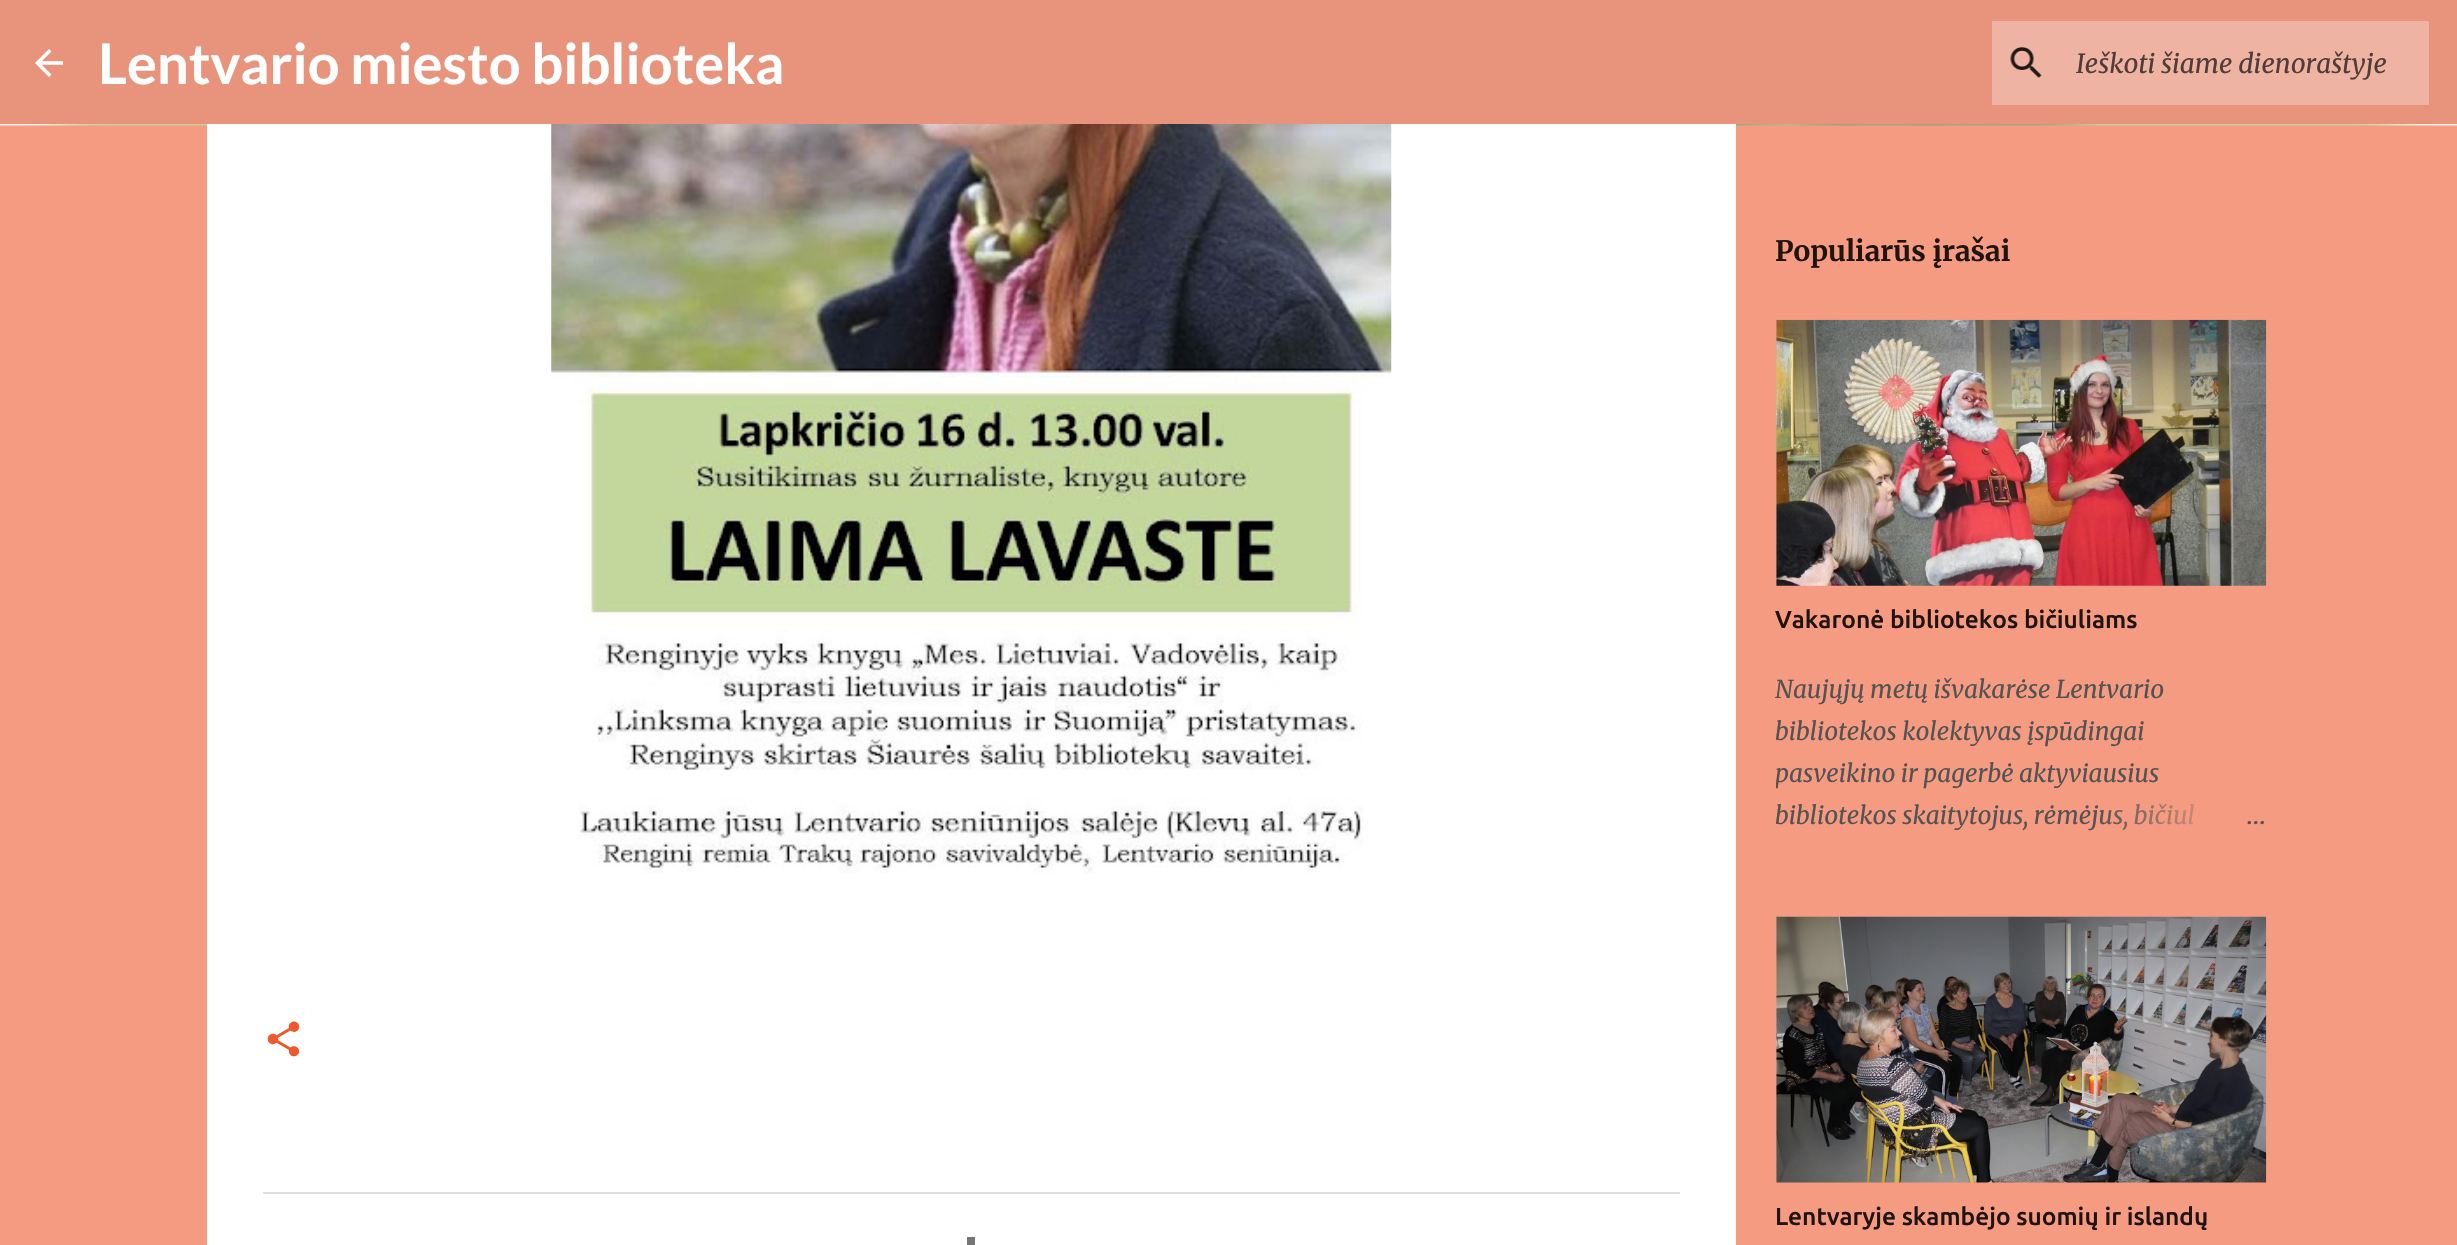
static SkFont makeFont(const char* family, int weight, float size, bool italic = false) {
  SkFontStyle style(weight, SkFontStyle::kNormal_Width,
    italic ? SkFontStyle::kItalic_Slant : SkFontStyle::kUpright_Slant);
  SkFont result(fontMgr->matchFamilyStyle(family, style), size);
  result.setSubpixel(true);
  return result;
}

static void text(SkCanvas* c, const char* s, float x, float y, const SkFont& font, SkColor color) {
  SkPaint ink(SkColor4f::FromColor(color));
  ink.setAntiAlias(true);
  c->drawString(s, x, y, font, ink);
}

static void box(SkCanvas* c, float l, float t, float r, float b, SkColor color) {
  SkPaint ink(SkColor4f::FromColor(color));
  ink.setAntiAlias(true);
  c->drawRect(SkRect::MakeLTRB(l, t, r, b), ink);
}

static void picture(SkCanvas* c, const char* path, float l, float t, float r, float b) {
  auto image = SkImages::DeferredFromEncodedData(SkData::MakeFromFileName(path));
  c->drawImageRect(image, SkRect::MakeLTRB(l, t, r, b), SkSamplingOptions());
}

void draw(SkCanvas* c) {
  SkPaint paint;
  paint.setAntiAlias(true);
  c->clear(0xfff59b82);
  box(c, 0, 0, 2457, 124, 0xffe8937b);
  picture(c, "img_01.png", 35, 49, 63, 77);
  SkFont face1 = makeFont("Lato", 700, 56);
  text(c, "Lentvario miesto biblioteka", 98, 84, face1, 0xffffffff);
  box(c, 1992, 21, 2429, 105, 0xffefb3a3);
  picture(c, "img_02.png", 2010, 47, 2042, 78);
  SkFont face2 = makeFont("Merriweather", 400, 26.25f, true);
  text(c, "Ieškoti šiame dienoraštyje", 2076, 73, face2, 0xff513d37);
  picture(c, "img_07.png", 0, 124, 2457, 126);
  box(c, 207, 124, 1736, 1245, 0xffffffff);
  box(c, 263, 1192, 1680, 1194, 0xffe0e0e0);
  picture(c, "img_03.png", 551, 124, 1392, 873);
  picture(c, "img_04.png", 267, 1021, 300, 1057);
  SkFont face3 = makeFont("Merriweather", 700, 28);
  text(c, "Populiarūs įrašai", 1775, 261, face3, 0xff201411);
  picture(c, "img_05.png", 1776, 319, 2267, 586);
  SkFont face4 = makeFont("Ubuntu", 500, 24.5f);
  text(c, "Vakaronė bibliotekos bičiuliams", 1775, 628, face4, 0xff201411);
  SkFont face5 = makeFont("Merriweather", 400, 24.5f, true);
  text(c, "Naujųjų metų išvakarėse Lentvario", 1775, 698, face5, 0xff535353);
  text(c, "bibliotekos kolektyvas įspūdingai", 1775, 740, face5, 0xff535353);
  c->save();
  c->clipRect(SkRect::MakeLTRB(1776, 669, 2266, 837));
  text(c, "pasveikino ir pagerbė aktyviausius", 1775, 782, face5, 0xff535353);
  c->restore();
  text(c, "bibliotekos skaitytojus, rėmėjus, bičiul", 1775, 824, face5, 0xff535353);
  {
    const SkColor colors[] = {0xfff59b82, 0xfff59b82, 0x00f59b82};
    const float stops[] = {0, 0.2f, 1};
    const SkPoint ends[] = {{2266, 816}, {2098, 816}};
    paint.setShader(SkGradientShader::MakeLinear(ends, colors, stops, 3, SkTileMode::kClamp));
    paint.setAlpha(255);
  }
  c->drawRect(SkRect::MakeLTRB(2101, 803, 2195, 830), paint);
  SkFont face6 = makeFont("Merriweather", 400, 24.5f);
  text(c, "…", 2246, 824, face6, 0xff535353);
  picture(c, "img_06.png", 1776, 916, 2267, 1183);
  text(c, "Lentvaryje skambėjo suomių ir islandų", 1775, 1225, face4, 0xff201411);
  box(c, 967, 1237, 975, 1245, 0xff757575);
}
